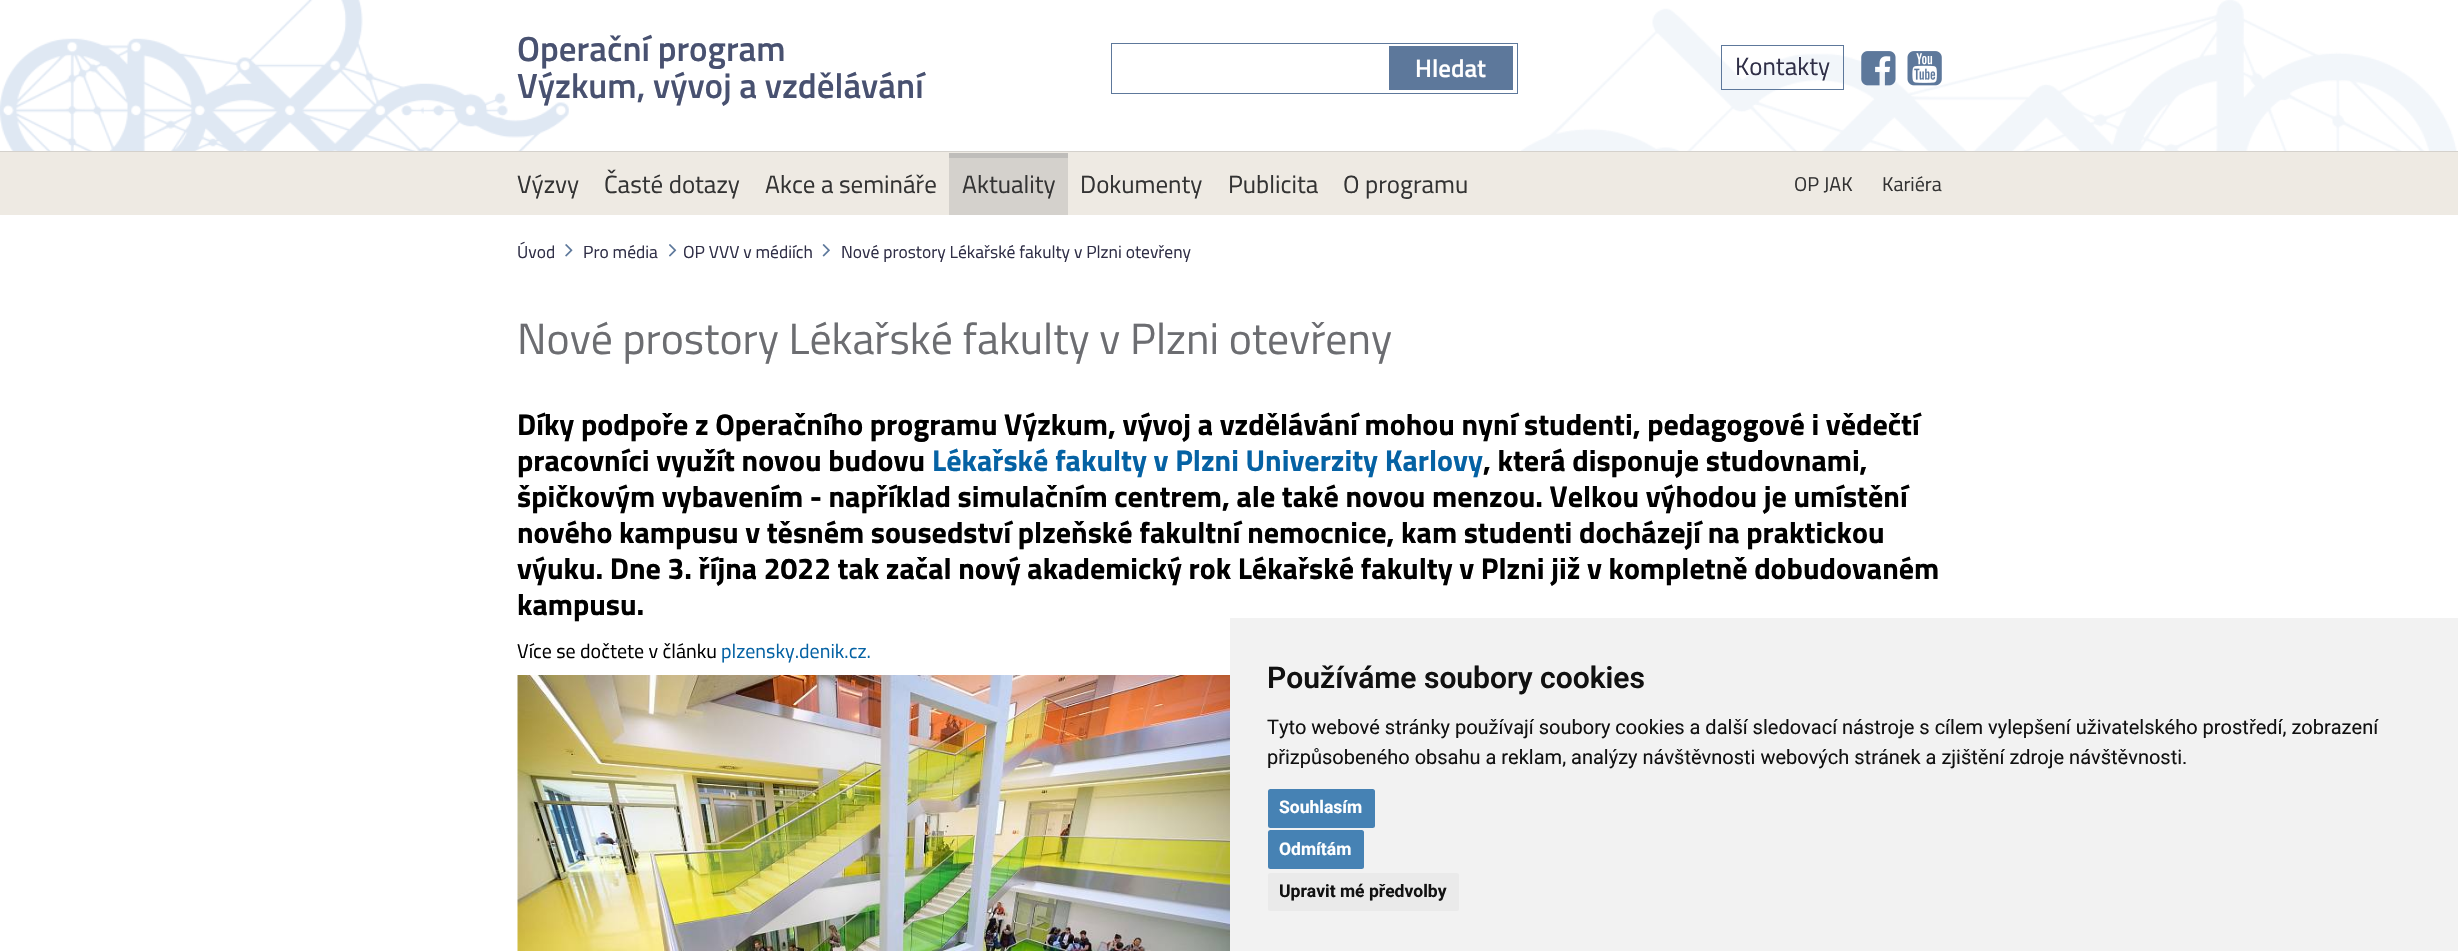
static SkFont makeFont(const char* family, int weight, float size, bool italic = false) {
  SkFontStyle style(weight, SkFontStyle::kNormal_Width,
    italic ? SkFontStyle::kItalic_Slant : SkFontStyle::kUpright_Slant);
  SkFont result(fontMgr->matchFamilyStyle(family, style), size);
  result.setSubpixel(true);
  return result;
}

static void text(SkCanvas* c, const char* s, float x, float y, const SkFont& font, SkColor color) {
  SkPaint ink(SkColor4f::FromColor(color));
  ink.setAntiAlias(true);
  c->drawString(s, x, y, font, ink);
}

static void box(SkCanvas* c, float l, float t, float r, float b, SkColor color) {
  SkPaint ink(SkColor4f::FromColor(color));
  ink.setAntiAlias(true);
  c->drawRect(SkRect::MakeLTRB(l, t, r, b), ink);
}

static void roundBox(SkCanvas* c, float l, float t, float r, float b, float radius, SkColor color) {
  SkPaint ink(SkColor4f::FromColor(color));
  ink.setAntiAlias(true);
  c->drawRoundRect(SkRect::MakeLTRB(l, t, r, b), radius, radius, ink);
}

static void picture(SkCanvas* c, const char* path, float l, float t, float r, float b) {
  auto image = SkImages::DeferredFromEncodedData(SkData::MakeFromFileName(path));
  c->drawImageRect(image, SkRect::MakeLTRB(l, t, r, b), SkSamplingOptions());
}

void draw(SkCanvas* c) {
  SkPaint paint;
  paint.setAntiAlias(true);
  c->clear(0xffffffff);
  picture(c, "img_01.png", 0, 0, 569, 151);
  picture(c, "img_02.png", 1521, 0, 2457, 151);
  SkFont face1 = makeFont("Titillium Web", 600, 35);
  text(c, "Operační program", 517, 61, face1, 0xff485170);
  text(c, "Výzkum, vývoj a vzdělávání", 517, 98, face1, 0xff485170);
  paint.setStyle(SkPaint::kStroke_Style);
  paint.setStrokeWidth(1);
  paint.setColor(0xff5d789b);
  c->drawRect(SkRect::MakeLTRB(1111.5f, 43.5f, 1517.5f, 93.5f), paint);
  box(c, 1389, 46, 1513, 90, 0xff5d789b);
  SkFont face2 = makeFont("Titillium Web", 600, 25);
  text(c, "Hledat", 1415, 77, face2, 0xffffffff);
  c->drawRect(SkRect::MakeLTRB(1721.5f, 45.5f, 1843.5f, 89.5f), paint);
  SkFont face3 = makeFont("Titillium Web", 400, 25);
  text(c, "Kontakty", 1735, 75, face3, 0xff302f47);
  picture(c, "img_03.png", 1861, 51, 1896, 86);
  picture(c, "img_04.png", 1907, 51, 1942, 86);
  box(c, 0, 152, 2458, 215, 0xffeeeae3);
  box(c, 0, 151, 2458, 152, 0xffd4d1cc);
  text(c, "Výzvy", 517, 193, face3, 0xff333333);
  text(c, "Časté dotazy", 604, 193, face3, 0xff333333);
  text(c, "Akce a semináře", 765, 193, face3, 0xff333333);
  box(c, 949, 158, 1068, 215, 0xffd4d1cc);
  box(c, 949, 153, 1068, 158, 0xffbfbdba);
  text(c, "Aktuality", 962, 193, face3, 0xff333333);
  text(c, "Dokumenty", 1080, 193, face3, 0xff333333);
  text(c, "Publicita", 1228, 193, face3, 0xff333333);
  text(c, "O programu", 1343, 193, face3, 0xff333333);
  SkFont face4 = makeFont("Titillium Web", 400, 20);
  text(c, "OP JAK", 1794, 191, face4, 0xff333333);
  text(c, "Kariéra", 1882, 191, face4, 0xff333333);
  SkFont face5 = makeFont("Titillium Web", 400, 17.5f);
  text(c, "Úvod", 517, 258, face5, 0xff302f47);
  picture(c, "img_05.png", 565, 244, 573, 257);
  text(c, "Pro média", 583, 258, face5, 0xff302f47);
  picture(c, "img_06.png", 669, 244, 677, 257);
  text(c, "OP VVV v médiích", 683, 258, face5, 0xff302f47);
  picture(c, "img_07.png", 822, 244, 830, 257);
  text(c, "Nové prostory Lékařské fakulty v Plzni otevřeny", 841, 258, face5, 0xff302f47);
  SkFont face6 = makeFont("Titillium Web", 400, 43.75f);
  text(c, "Nové prostory Lékařské fakulty v Plzni otevřeny", 517, 354, face6, 0xff6c6d71);
  SkFont face7 = makeFont("Titillium Web", 700, 30);
  text(c, "Díky podpoře z Operačního programu Výzkum, vývoj a vzdělávání mohou nyní studenti, pedagogové i vědečtí", 517, 435, face7, 0xff000000);
  text(c, "pracovníci využít novou budovu", 517, 471, face7, 0xff000000);
  text(c, "Lékařské fakulty v Plzni Univerzity Karlovy", 932, 471, face7, 0xff0562a4);
  text(c, ", která disponuje studovnami,", 1483, 471, face7, 0xff000000);
  text(c, "špičkovým vybavením - například simulačním centrem, ale také novou menzou. Velkou výhodou je umístění", 517, 507, face7, 0xff000000);
  text(c, "nového kampusu v těsném sousedství plzeňské fakultní nemocnice, kam studenti docházejí na praktickou", 517, 543, face7, 0xff000000);
  text(c, "výuku. Dne 3. října 2022 tak začal nový akademický rok Lékařské fakulty v Plzni již v kompletně dobudovaném", 517, 579, face7, 0xff000000);
  text(c, "kampusu.", 517, 615, face7, 0xff000000);
  text(c, "Více se dočtete v článku", 517, 658, face4, 0xff000000);
  text(c, "plzensky.denik.cz.", 721, 658, face4, 0xff0562a4);
  picture(c, "img_08.png", 517, 675, 1230, 951);
  box(c, 1230, 618, 2458, 951, 0xfff2f2f2);
  SkFont face8 = makeFont("Roboto", 600, 30);
  text(c, "Používáme soubory cookies", 1267, 688, face8, 0xff111111);
  SkFont face9 = makeFont("Roboto", 400, 20);
  text(c, "Tyto webové stránky používají soubory cookies a další sledovací nástroje s cílem vylepšení uživatelského prostředí, zobrazení", 1267, 734, face9, 0xff111111);
  text(c, "přizpůsobeného obsahu a reklam, analýzy návštěvnosti webových stránek a zjištění zdroje návštěvnosti.", 1267, 764, face9, 0xff111111);
  roundBox(c, 1268, 789, 1375, 828, 2.5f, 0xff4682b4);
  SkFont face10 = makeFont("Roboto", 700, 17.5f);
  text(c, "Souhlasím", 1279, 813, face10, 0xffffffff);
  roundBox(c, 1268, 830, 1364, 869, 2.5f, 0xff4682b4);
  text(c, "Odmítám", 1279, 855, face10, 0xffffffff);
  roundBox(c, 1268, 873, 1459, 911, 2.5f, 0xffeaeaea);
  text(c, "Upravit mé předvolby", 1279, 897, face10, 0xff111111);
}
